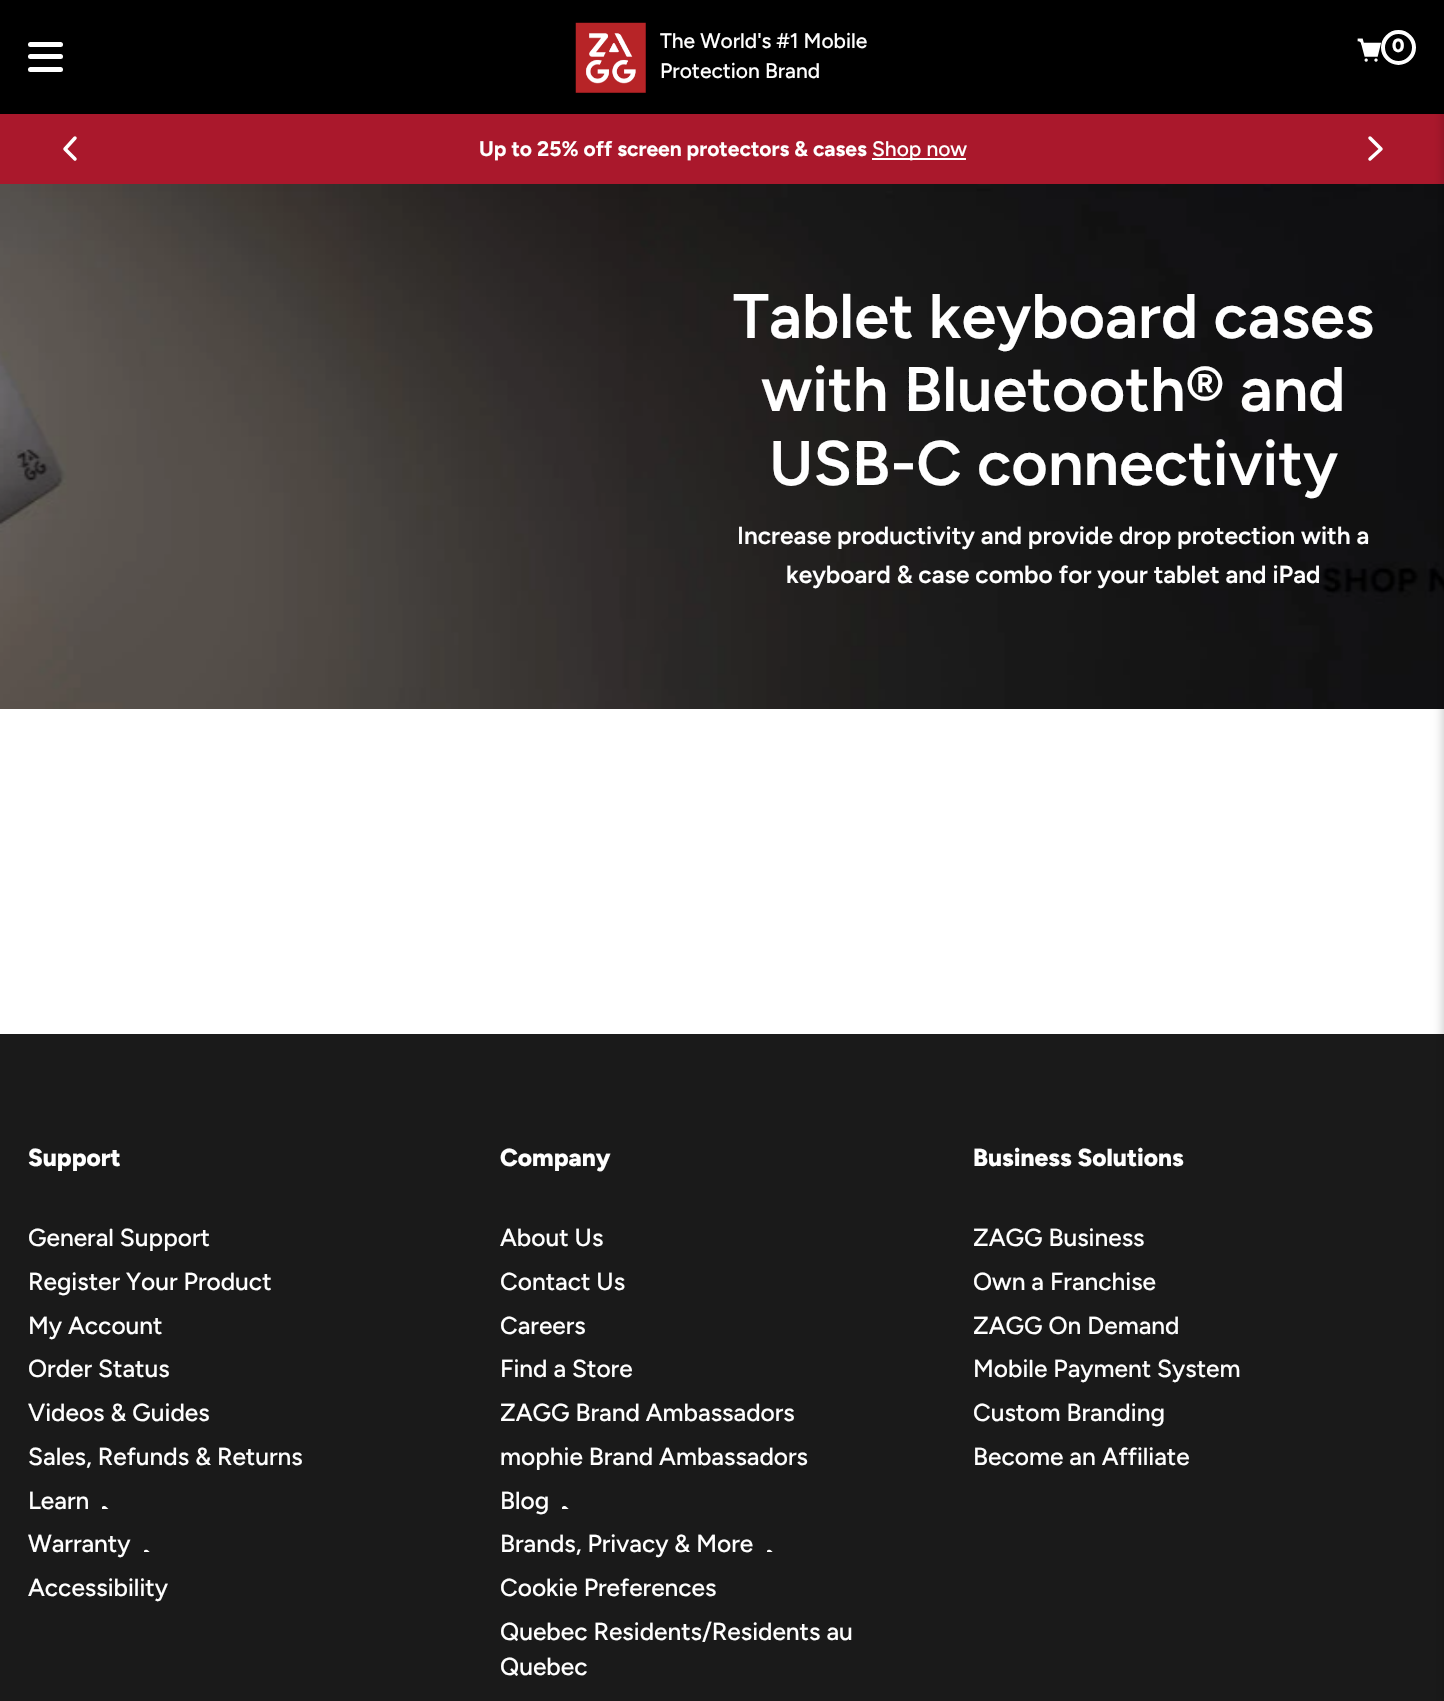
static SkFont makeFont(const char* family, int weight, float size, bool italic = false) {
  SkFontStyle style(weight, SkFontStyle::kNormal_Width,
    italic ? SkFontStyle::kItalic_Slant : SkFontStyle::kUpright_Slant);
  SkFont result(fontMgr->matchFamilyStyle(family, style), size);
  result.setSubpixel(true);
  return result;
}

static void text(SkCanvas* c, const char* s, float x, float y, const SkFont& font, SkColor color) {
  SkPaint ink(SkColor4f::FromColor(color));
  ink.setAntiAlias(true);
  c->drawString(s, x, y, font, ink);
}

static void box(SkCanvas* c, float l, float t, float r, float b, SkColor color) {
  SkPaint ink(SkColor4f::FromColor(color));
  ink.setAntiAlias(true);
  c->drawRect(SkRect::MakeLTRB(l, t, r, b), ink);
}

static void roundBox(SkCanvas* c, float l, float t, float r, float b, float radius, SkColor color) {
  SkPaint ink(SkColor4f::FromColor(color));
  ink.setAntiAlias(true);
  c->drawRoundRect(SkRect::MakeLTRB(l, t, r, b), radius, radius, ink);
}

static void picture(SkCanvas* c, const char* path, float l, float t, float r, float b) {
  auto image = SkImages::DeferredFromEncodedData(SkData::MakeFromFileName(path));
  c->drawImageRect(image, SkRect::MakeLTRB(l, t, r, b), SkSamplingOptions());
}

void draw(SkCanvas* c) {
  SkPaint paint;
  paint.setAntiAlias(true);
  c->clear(0xffffffff);
  box(c, 0, 0, 1444, 114, 0xff000000);
  roundBox(c, 28, 42, 63, 47, 2.5f, 0xffffffff);
  roundBox(c, 28, 54, 63, 59, 2.5f, 0xffffffff);
  roundBox(c, 28, 67, 63, 72, 2.5f, 0xffffffff);
  picture(c, "img_01.png", 575, 22, 646, 93);
  SkFont face1 = makeFont("Figtree", 500, 21);
  text(c, "The World's #1 Mobile", 660, 48, face1, 0xffffffff);
  text(c, "Protection Brand", 660, 78, face1, 0xffffffff);
  picture(c, "img_02.png", 1357, 38, 1382, 62);
  paint.setStyle(SkPaint::kStroke_Style);
  paint.setStrokeWidth(4);
  paint.setColor(0xffffffff);
  c->drawCircle(1398.5f, 47.5f, 15.5f, paint);
  SkFont face2 = makeFont("Figtree", 800, 19);
  text(c, "0", 1392, 52, face2, 0xffffffff);
  box(c, 0, 114, 1444, 184, 0xffaa182c);
  paint.setStrokeWidth(3.5f);
  paint.setStrokeCap(SkPaint::kRound_Cap);
  paint.setStrokeJoin(SkPaint::kRound_Join);
  c->drawPath(SkPathBuilder().moveTo(75, 159).lineTo(65, 149).lineTo(75, 138).detach(), paint);
  SkFont face3 = makeFont("Figtree", 700, 21);
  text(c, "Up to 25% off screen protectors & cases", 479, 156, face3, 0xffffffff);
  box(c, 872, 158, 966, 160, 0xffffffff);
  text(c, "Shop now", 872, 156, face1, 0xffffffff);
  c->drawPath(SkPathBuilder().moveTo(1370, 138).lineTo(1381, 149).lineTo(1370, 159).detach(), paint);
  picture(c, "img_03.png", 0, 184, 1444, 709);
  SkFont face4 = makeFont("Figtree", 600, 63);
  text(c, "Tablet keyboard cases", 733, 338, face4, 0xffffffff);
  text(c, "with Bluetooth® and", 761, 411, face4, 0xffffffff);
  text(c, "USB-C connectivity", 769, 485, face4, 0xffffffff);
  SkFont face5 = makeFont("Figtree", 600, 24.5f);
  text(c, "Increase productivity and provide drop protection with a", 737, 544, face5, 0xffffffff);
  text(c, "keyboard & case combo for your tablet and iPad", 786, 583, face5, 0xffffffff);
  box(c, 0, 1034, 1444, 1701, 0xff1a1a1a);
  paint.setStyle(SkPaint::kFill_Style);
  paint.setColor(0x40000000);
  paint.setMaskFilter(SkMaskFilter::MakeBlur(kNormal_SkBlurStyle, 6));
  c->drawRect(SkRect::MakeLTRB(1444, 2, 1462, 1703), paint);
  paint.setMaskFilter(nullptr);
  SkFont face6 = makeFont("Figtree", 800, 24.5f);
  text(c, "Support", 28, 1166, face6, 0xffffffff);
  SkFont face7 = makeFont("Figtree", 500, 24.5f);
  text(c, "General Support", 28, 1246, face7, 0xffffffff);
  text(c, "Register Your Product", 28, 1290, face7, 0xffffffff);
  text(c, "My Account", 28, 1334, face7, 0xffffffff);
  text(c, "Order Status", 28, 1377, face7, 0xffffffff);
  text(c, "Videos & Guides", 28, 1421, face7, 0xffffffff);
  text(c, "Sales, Refunds & Returns", 28, 1465, face7, 0xffffffff);
  text(c, "Learn", 28, 1509, face7, 0xffffffff);
  picture(c, "img_04.png", 102, 1506, 109, 1509);
  text(c, "Warranty", 28, 1552, face7, 0xffffffff);
  picture(c, "img_05.png", 144, 1549, 150, 1552);
  text(c, "Accessibility", 28, 1596, face7, 0xffffffff);
  text(c, "Company", 500, 1166, face6, 0xffffffff);
  text(c, "About Us", 500, 1246, face7, 0xffffffff);
  text(c, "Contact Us", 500, 1290, face7, 0xffffffff);
  text(c, "Careers", 500, 1334, face7, 0xffffffff);
  text(c, "Find a Store", 500, 1377, face7, 0xffffffff);
  text(c, "ZAGG Brand Ambassadors", 500, 1421, face7, 0xffffffff);
  text(c, "mophie Brand Ambassadors", 500, 1465, face7, 0xffffffff);
  text(c, "Blog", 500, 1509, face7, 0xffffffff);
  picture(c, "img_06.png", 562, 1506, 569, 1509);
  text(c, "Brands, Privacy & More", 500, 1552, face7, 0xffffffff);
  picture(c, "img_05.png", 767, 1549, 773, 1552);
  text(c, "Cookie Preferences", 500, 1596, face7, 0xffffffff);
  text(c, "Quebec Residents/Residents au", 500, 1640, face7, 0xffffffff);
  text(c, "Quebec", 500, 1675, face7, 0xffffffff);
  text(c, "Business Solutions", 973, 1166, face6, 0xffffffff);
  text(c, "ZAGG Business", 973, 1246, face7, 0xffffffff);
  text(c, "Own a Franchise", 973, 1290, face7, 0xffffffff);
  text(c, "ZAGG On Demand", 973, 1334, face7, 0xffffffff);
  text(c, "Mobile Payment System", 973, 1377, face7, 0xffffffff);
  text(c, "Custom Branding", 973, 1421, face7, 0xffffffff);
  text(c, "Become an Affiliate", 973, 1465, face7, 0xffffffff);
}
